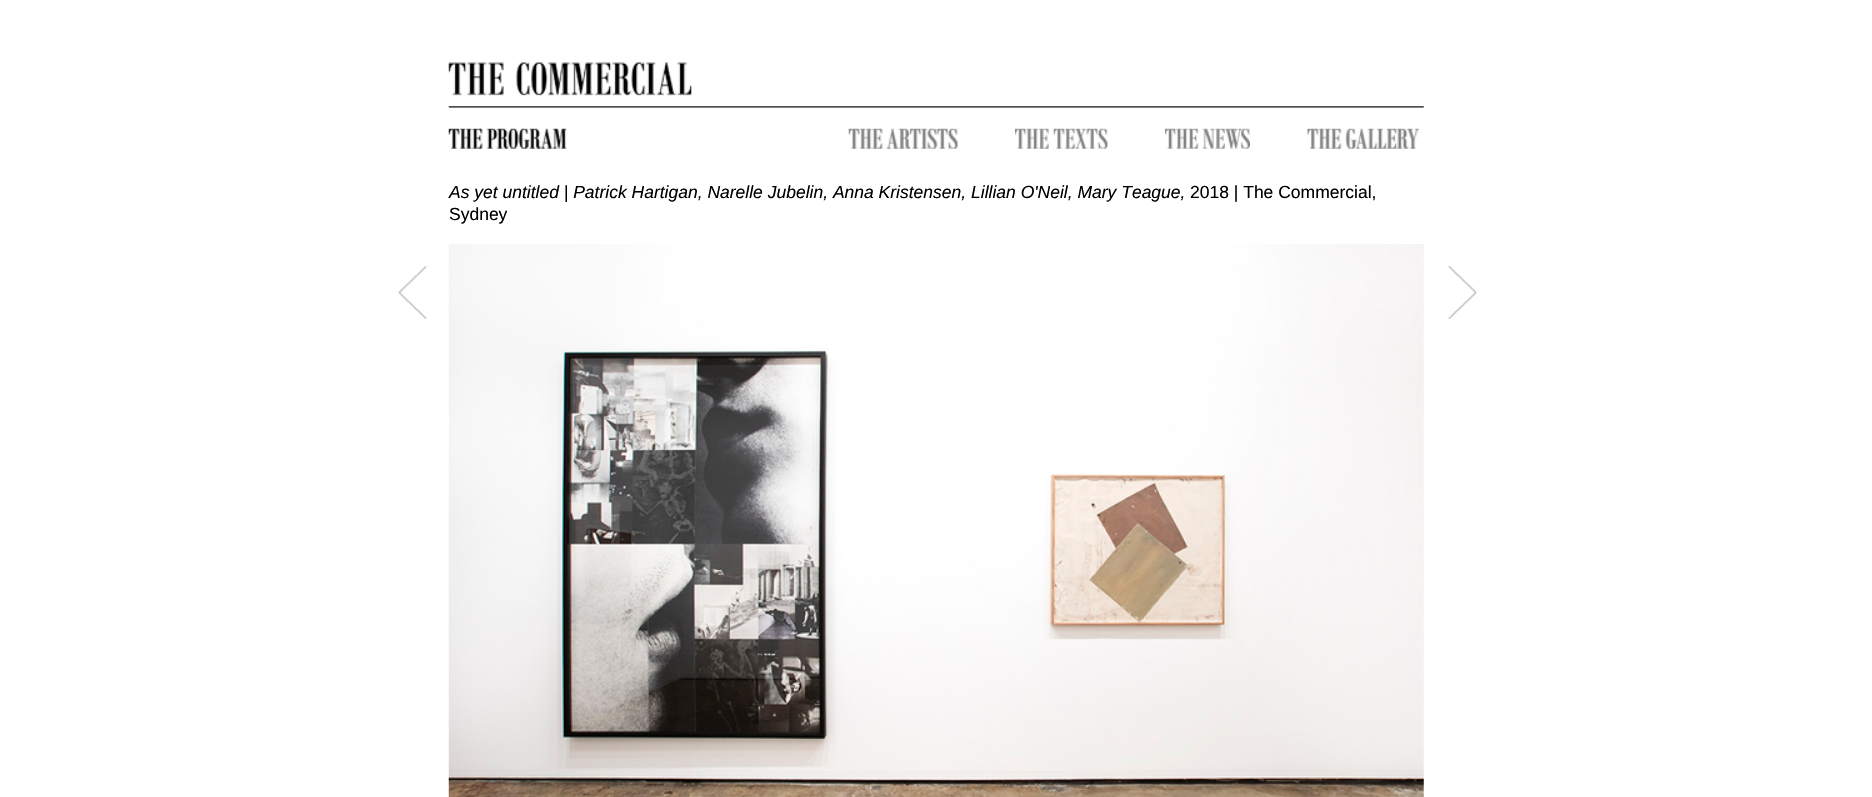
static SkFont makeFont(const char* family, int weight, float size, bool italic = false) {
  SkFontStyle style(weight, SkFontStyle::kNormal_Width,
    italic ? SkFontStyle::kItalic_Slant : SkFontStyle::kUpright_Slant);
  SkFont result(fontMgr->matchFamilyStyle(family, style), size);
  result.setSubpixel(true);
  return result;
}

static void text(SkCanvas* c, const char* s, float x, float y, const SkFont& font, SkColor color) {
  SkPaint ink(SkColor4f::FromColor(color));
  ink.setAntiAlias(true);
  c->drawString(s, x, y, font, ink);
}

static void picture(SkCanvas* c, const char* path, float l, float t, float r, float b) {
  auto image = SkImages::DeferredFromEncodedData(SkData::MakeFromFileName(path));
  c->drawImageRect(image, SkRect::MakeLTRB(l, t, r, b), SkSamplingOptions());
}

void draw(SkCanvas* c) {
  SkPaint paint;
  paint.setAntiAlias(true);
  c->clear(0xffffffff);
  picture(c, "img_01.png", 448, 62, 1424, 108);
  picture(c, "img_02.png", 448, 128, 567, 149);
  picture(c, "img_03.png", 848, 128, 958, 149);
  picture(c, "img_04.png", 1015, 128, 1108, 149);
  picture(c, "img_05.png", 1165, 128, 1250, 149);
  picture(c, "img_06.png", 1307, 128, 1419, 149);
  SkFont face1 = makeFont("Liberation Sans", 400, 17.5f, true);
  text(c, "As yet untitled | Patrick Hartigan, Narelle Jubelin, Anna Kristensen, Lillian O'Neil, Mary Teague,", 449, 198, face1, 0xff000000);
  SkFont face2 = makeFont("Liberation Sans", 400, 17.5f);
  text(c, "2018 | The Commercial,", 1190, 198, face2, 0xff000000);
  text(c, "Sydney", 449, 220, face2, 0xff000000);
  picture(c, "img_07.png", 448, 244, 1424, 797);
  picture(c, "img_08.png", 398, 266, 427, 319);
  picture(c, "img_09.png", 1448, 266, 1477, 319);
}
